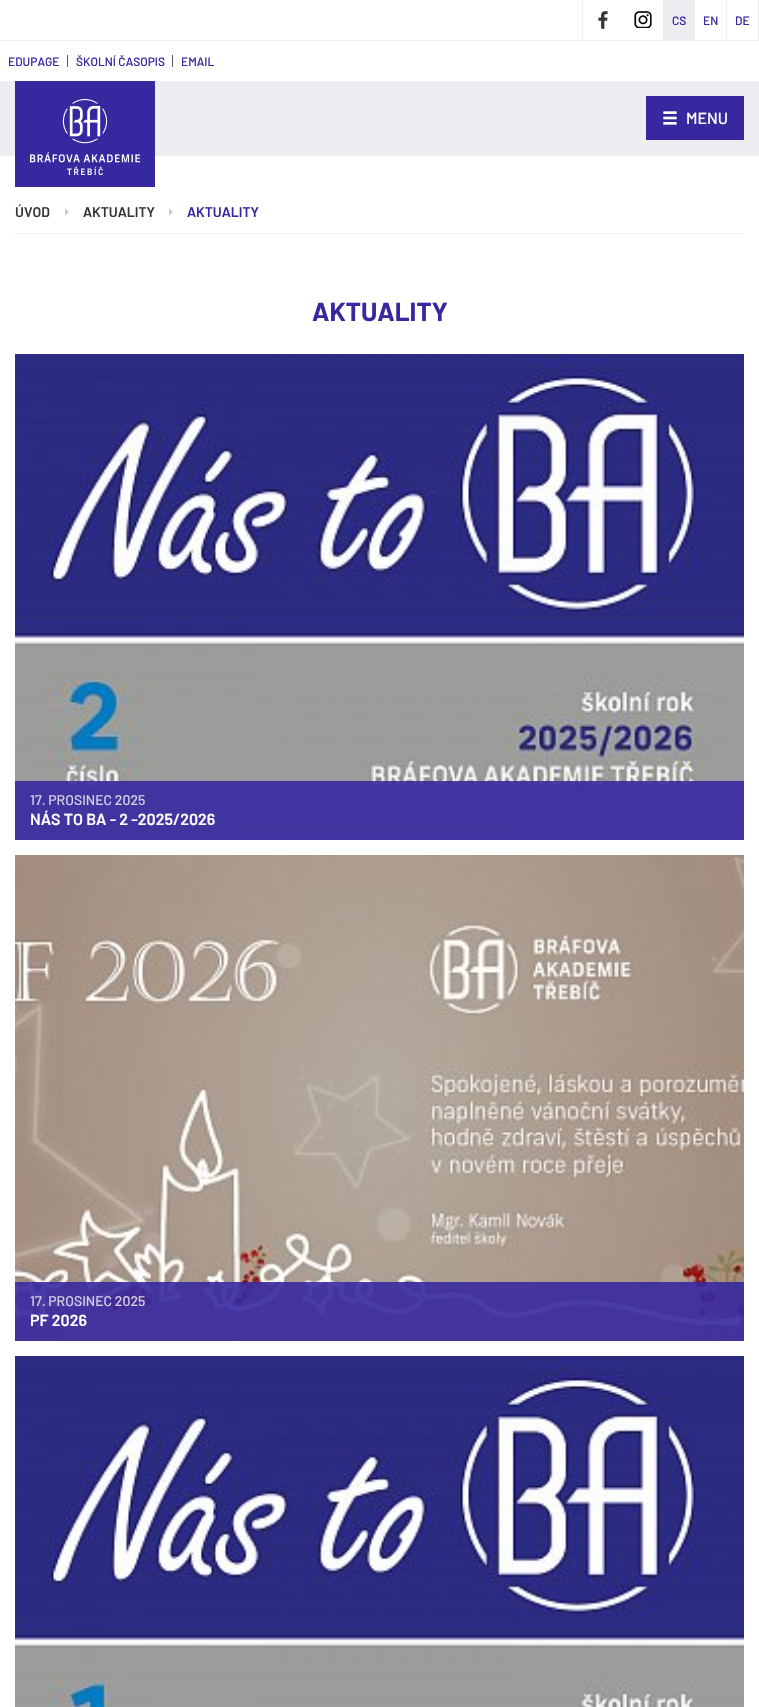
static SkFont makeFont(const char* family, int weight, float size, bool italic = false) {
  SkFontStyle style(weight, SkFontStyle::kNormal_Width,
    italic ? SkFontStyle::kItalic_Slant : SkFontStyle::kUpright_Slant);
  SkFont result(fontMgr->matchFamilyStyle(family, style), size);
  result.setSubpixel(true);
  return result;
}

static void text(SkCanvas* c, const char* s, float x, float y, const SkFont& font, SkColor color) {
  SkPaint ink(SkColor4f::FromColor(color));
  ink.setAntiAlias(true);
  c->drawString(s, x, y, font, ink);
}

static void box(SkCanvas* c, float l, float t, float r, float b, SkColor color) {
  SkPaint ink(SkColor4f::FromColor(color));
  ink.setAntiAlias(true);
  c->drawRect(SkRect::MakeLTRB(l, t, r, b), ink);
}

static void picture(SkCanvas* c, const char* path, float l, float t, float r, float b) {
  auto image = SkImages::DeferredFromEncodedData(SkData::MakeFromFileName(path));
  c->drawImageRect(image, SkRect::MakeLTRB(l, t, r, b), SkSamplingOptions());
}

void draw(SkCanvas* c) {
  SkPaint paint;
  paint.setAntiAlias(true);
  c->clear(0xffffffff);
  box(c, 663, 0, 664, 40, 0xffeeedf2);
  box(c, 582, 0, 583, 40, 0xffeeedf2);
  picture(c, "img_01.png", 598, 11, 608, 29);
  picture(c, "img_02.png", 634, 11, 652, 28);
  box(c, 664, 0, 695, 40, 0xffeeedf2);
  SkFont face1 = makeFont("Barlow", 500, 12);
  text(c, "CS", 672, 25, face1, 0xff3728a0);
  box(c, 726, 0, 727, 40, 0xffeeedf2);
  text(c, "EN", 703, 25, face1, 0xff3728a0);
  box(c, 758, 0, 759, 40, 0xffeeedf2);
  text(c, "DE", 735, 25, face1, 0xff3728a0);
  box(c, 0, 40, 759, 41, 0xffeeedf2);
  text(c, "EDUPAGE", 8, 66, face1, 0xff3728a0);
  box(c, 67, 55, 68, 67, 0xff585858);
  text(c, "ŠKOLNÍ ČASOPIS", 76, 66, face1, 0xff3728a0);
  box(c, 172, 55, 173, 67, 0xff585858);
  text(c, "EMAIL", 181, 66, face1, 0xff3728a0);
  box(c, 0, 81, 759, 156, 0xffeeedf2);
  box(c, 15, 81, 155, 187, 0xff3728a0);
  picture(c, "img_03.png", 30, 99, 140, 175);
  box(c, 646, 96, 744, 140, 0xff3728a0);
  picture(c, "img_04.png", 663, 111, 677, 125);
  SkFont face2 = makeFont("Barlow", 500, 16);
  text(c, "MENU", 686, 124, face2, 0xffffffff);
  box(c, 15, 233, 744, 234, 0xffeeedf2);
  SkFont face3 = makeFont("Barlow", 600, 14);
  text(c, "ÚVOD", 15, 217, face3, 0xff373737);
  picture(c, "img_05.png", 65, 208, 69, 216);
  text(c, "AKTUALITY", 83, 217, face3, 0xff373737);
  picture(c, "img_05.png", 169, 208, 173, 216);
  text(c, "AKTUALITY", 187, 217, face3, 0xff3728a0);
  SkFont face4 = makeFont("Barlow", 700, 26);
  text(c, "AKTUALITY", 312, 321, face4, 0xff3728a0);
  picture(c, "img_06.png", 15, 354, 744, 840);
  box(c, 15, 781, 744, 840, 0xe63728a0);
  SkFont face5 = makeFont("Barlow", 500, 14);
  text(c, "17. PROSINEC 2025", 30, 805, face5, 0xffd2cee2);
  SkFont face6 = makeFont("Barlow", 600, 16);
  text(c, "NÁS TO BA - 2 -2025/2026", 30, 825, face6, 0xffffffff);
  picture(c, "img_07.png", 15, 855, 744, 1341);
  box(c, 15, 1282, 744, 1341, 0xe63728a0);
  text(c, "17. PROSINEC 2025", 30, 1306, face5, 0xffd2cee2);
  text(c, "PF 2026", 30, 1326, face6, 0xffffffff);
  picture(c, "img_08.png", 15, 1356, 744, 1707);
}
